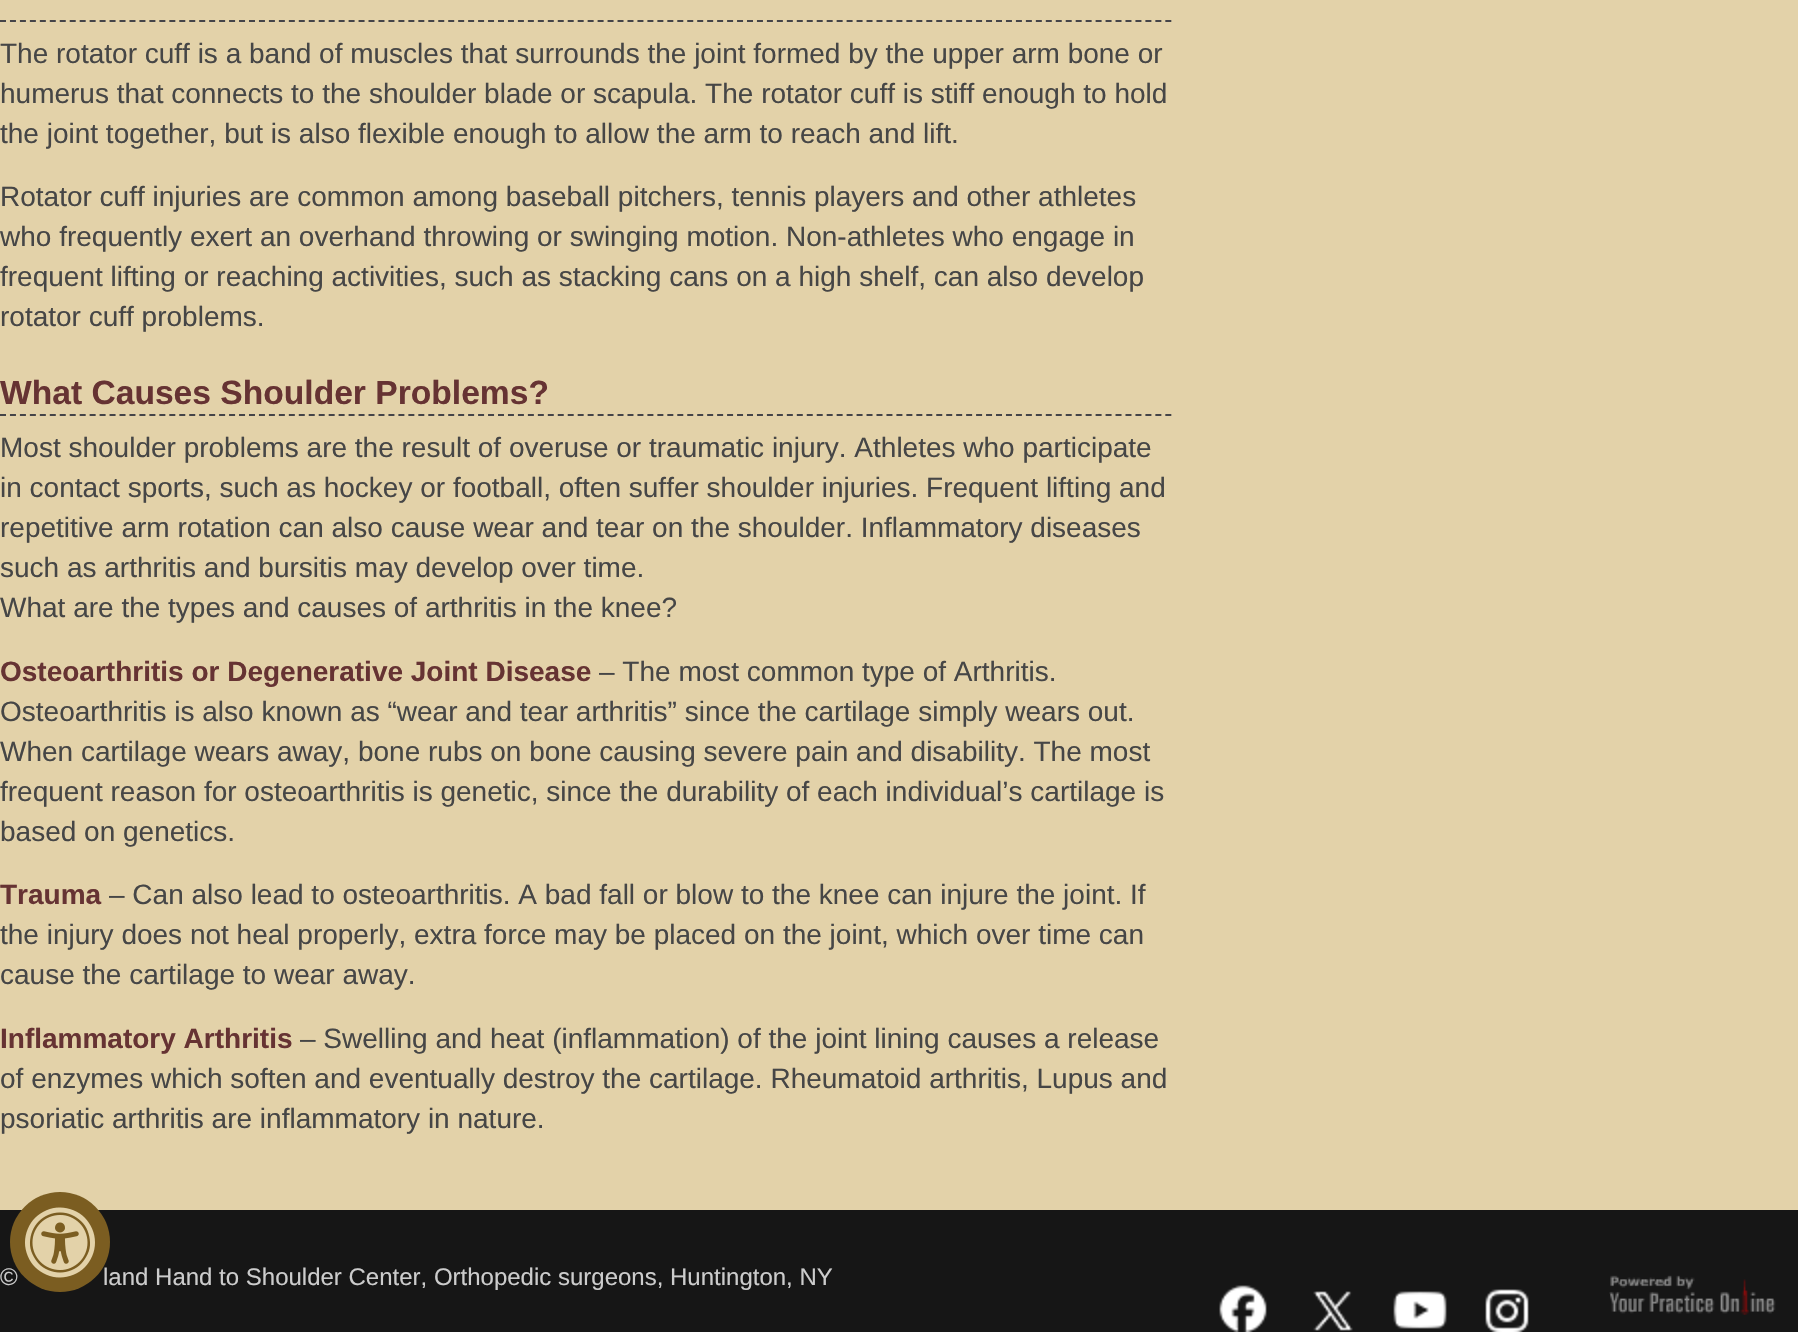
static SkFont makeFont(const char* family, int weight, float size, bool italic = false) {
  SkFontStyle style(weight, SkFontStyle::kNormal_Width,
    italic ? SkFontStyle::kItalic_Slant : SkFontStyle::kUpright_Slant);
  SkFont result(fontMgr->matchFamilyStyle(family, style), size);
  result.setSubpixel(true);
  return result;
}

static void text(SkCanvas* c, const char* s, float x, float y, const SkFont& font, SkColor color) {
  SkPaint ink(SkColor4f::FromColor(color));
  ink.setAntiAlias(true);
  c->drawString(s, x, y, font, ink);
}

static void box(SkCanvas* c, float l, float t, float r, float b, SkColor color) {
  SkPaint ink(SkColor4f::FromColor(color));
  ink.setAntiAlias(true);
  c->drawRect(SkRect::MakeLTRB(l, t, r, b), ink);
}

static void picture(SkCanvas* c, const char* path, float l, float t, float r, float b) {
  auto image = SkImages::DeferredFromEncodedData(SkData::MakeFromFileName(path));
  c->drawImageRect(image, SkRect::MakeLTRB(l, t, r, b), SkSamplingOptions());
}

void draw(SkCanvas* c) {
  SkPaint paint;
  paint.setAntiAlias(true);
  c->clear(0xffe3d2a9);
  paint.setStyle(SkPaint::kStroke_Style);
  paint.setStrokeWidth(2);
  paint.setColor(0xff454448);
  paint.setPathEffect(SkDashPathEffect::Make({{6, 3.96f}}, 0));
  c->drawPath(SkPathBuilder().moveTo(0, 21).lineTo(1172, 21).detach(), paint);
  paint.setPathEffect(nullptr);
  SkFont face1 = makeFont("Liberation Sans", 400, 28);
  text(c, "The rotator cuff is a band of muscles that surrounds the joint formed by the upper arm bone or", 0, 63, face1, 0xff464646);
  text(c, "humerus that connects to the shoulder blade or scapula. The rotator cuff is stiff enough to hold", 0, 103, face1, 0xff464646);
  text(c, "the joint together, but is also flexible enough to allow the arm to reach and lift.", 0, 143, face1, 0xff464646);
  text(c, "Rotator cuff injuries are common among baseball pitchers, tennis players and other athletes", 0, 206, face1, 0xff464646);
  text(c, "who frequently exert an overhand throwing or swinging motion. Non-athletes who engage in", 0, 246, face1, 0xff464646);
  text(c, "frequent lifting or reaching activities, such as stacking cans on a high shelf, can also develop", 0, 286, face1, 0xff464646);
  text(c, "rotator cuff problems.", 0, 326, face1, 0xff464646);
  paint.setPathEffect(SkDashPathEffect::Make({{6, 3.96f}}, 0));
  c->drawPath(SkPathBuilder().moveTo(0, 415).lineTo(1172, 415).detach(), paint);
  paint.setPathEffect(nullptr);
  SkFont face2 = makeFont("Liberation Sans", 700, 33.6f);
  text(c, "What Causes Shoulder Problems?", 0, 404, face2, 0xff663333);
  text(c, "Most shoulder problems are the result of overuse or traumatic injury. Athletes who participate", 0, 457, face1, 0xff464646);
  text(c, "in contact sports, such as hockey or football, often suffer shoulder injuries. Frequent lifting and", 0, 497, face1, 0xff464646);
  text(c, "repetitive arm rotation can also cause wear and tear on the shoulder. Inflammatory diseases", 0, 537, face1, 0xff464646);
  text(c, "such as arthritis and bursitis may develop over time.", 0, 577, face1, 0xff464646);
  text(c, "What are the types and causes of arthritis in the knee?", 0, 617, face1, 0xff464646);
  SkFont face3 = makeFont("Liberation Sans", 700, 28);
  text(c, "Osteoarthritis or Degenerative Joint Disease", 0, 681, face3, 0xff663333);
  text(c, "– The most common type of Arthritis.", 599, 681, face1, 0xff464646);
  text(c, "Osteoarthritis is also known as “wear and tear arthritis” since the cartilage simply wears out.", 0, 721, face1, 0xff464646);
  text(c, "When cartilage wears away, bone rubs on bone causing severe pain and disability. The most", 0, 761, face1, 0xff464646);
  text(c, "frequent reason for osteoarthritis is genetic, since the durability of each individual’s cartilage is", 0, 801, face1, 0xff464646);
  text(c, "based on genetics.", 0, 841, face1, 0xff464646);
  text(c, "Trauma", 0, 904, face3, 0xff663333);
  text(c, "– Can also lead to osteoarthritis. A bad fall or blow to the knee can injure the joint. If", 109, 904, face1, 0xff464646);
  text(c, "the injury does not heal properly, extra force may be placed on the joint, which over time can", 0, 944, face1, 0xff464646);
  text(c, "cause the cartilage to wear away.", 0, 984, face1, 0xff464646);
  text(c, "Inflammatory Arthritis", 0, 1048, face3, 0xff663333);
  text(c, "– Swelling and heat (inflammation) of the joint lining causes a release", 300, 1048, face1, 0xff464646);
  text(c, "of enzymes which soften and eventually destroy the cartilage. Rheumatoid arthritis, Lupus and", 0, 1088, face1, 0xff464646);
  text(c, "psoriatic arthritis are inflammatory in nature.", 0, 1128, face1, 0xff464646);
  box(c, 0, 1210, 1798, 1332, 0xff161616);
  SkFont face4 = makeFont("Liberation Sans", 400, 24);
  text(c, "©", 0, 1285, face4, 0xffcccccc);
  text(c, "land Hand to Shoulder Center, Orthopedic surgeons, Huntington, NY", 103, 1285, face4, 0xffcccccc);
  paint.setStyle(SkPaint::kFill_Style);
  paint.setColor(0xff7b5d21);
  c->drawCircle(60, 1242, 50, paint);
  picture(c, "img_01.png", 25, 1207, 95, 1278);
  picture(c, "img_02.png", 1219, 1285, 1267, 1332);
  picture(c, "img_03.png", 1313, 1291, 1353, 1331);
  picture(c, "img_04.png", 1393, 1291, 1447, 1329);
  picture(c, "img_05.png", 1485, 1289, 1529, 1332);
  picture(c, "img_06.png", 1609, 1275, 1776, 1315);
}
